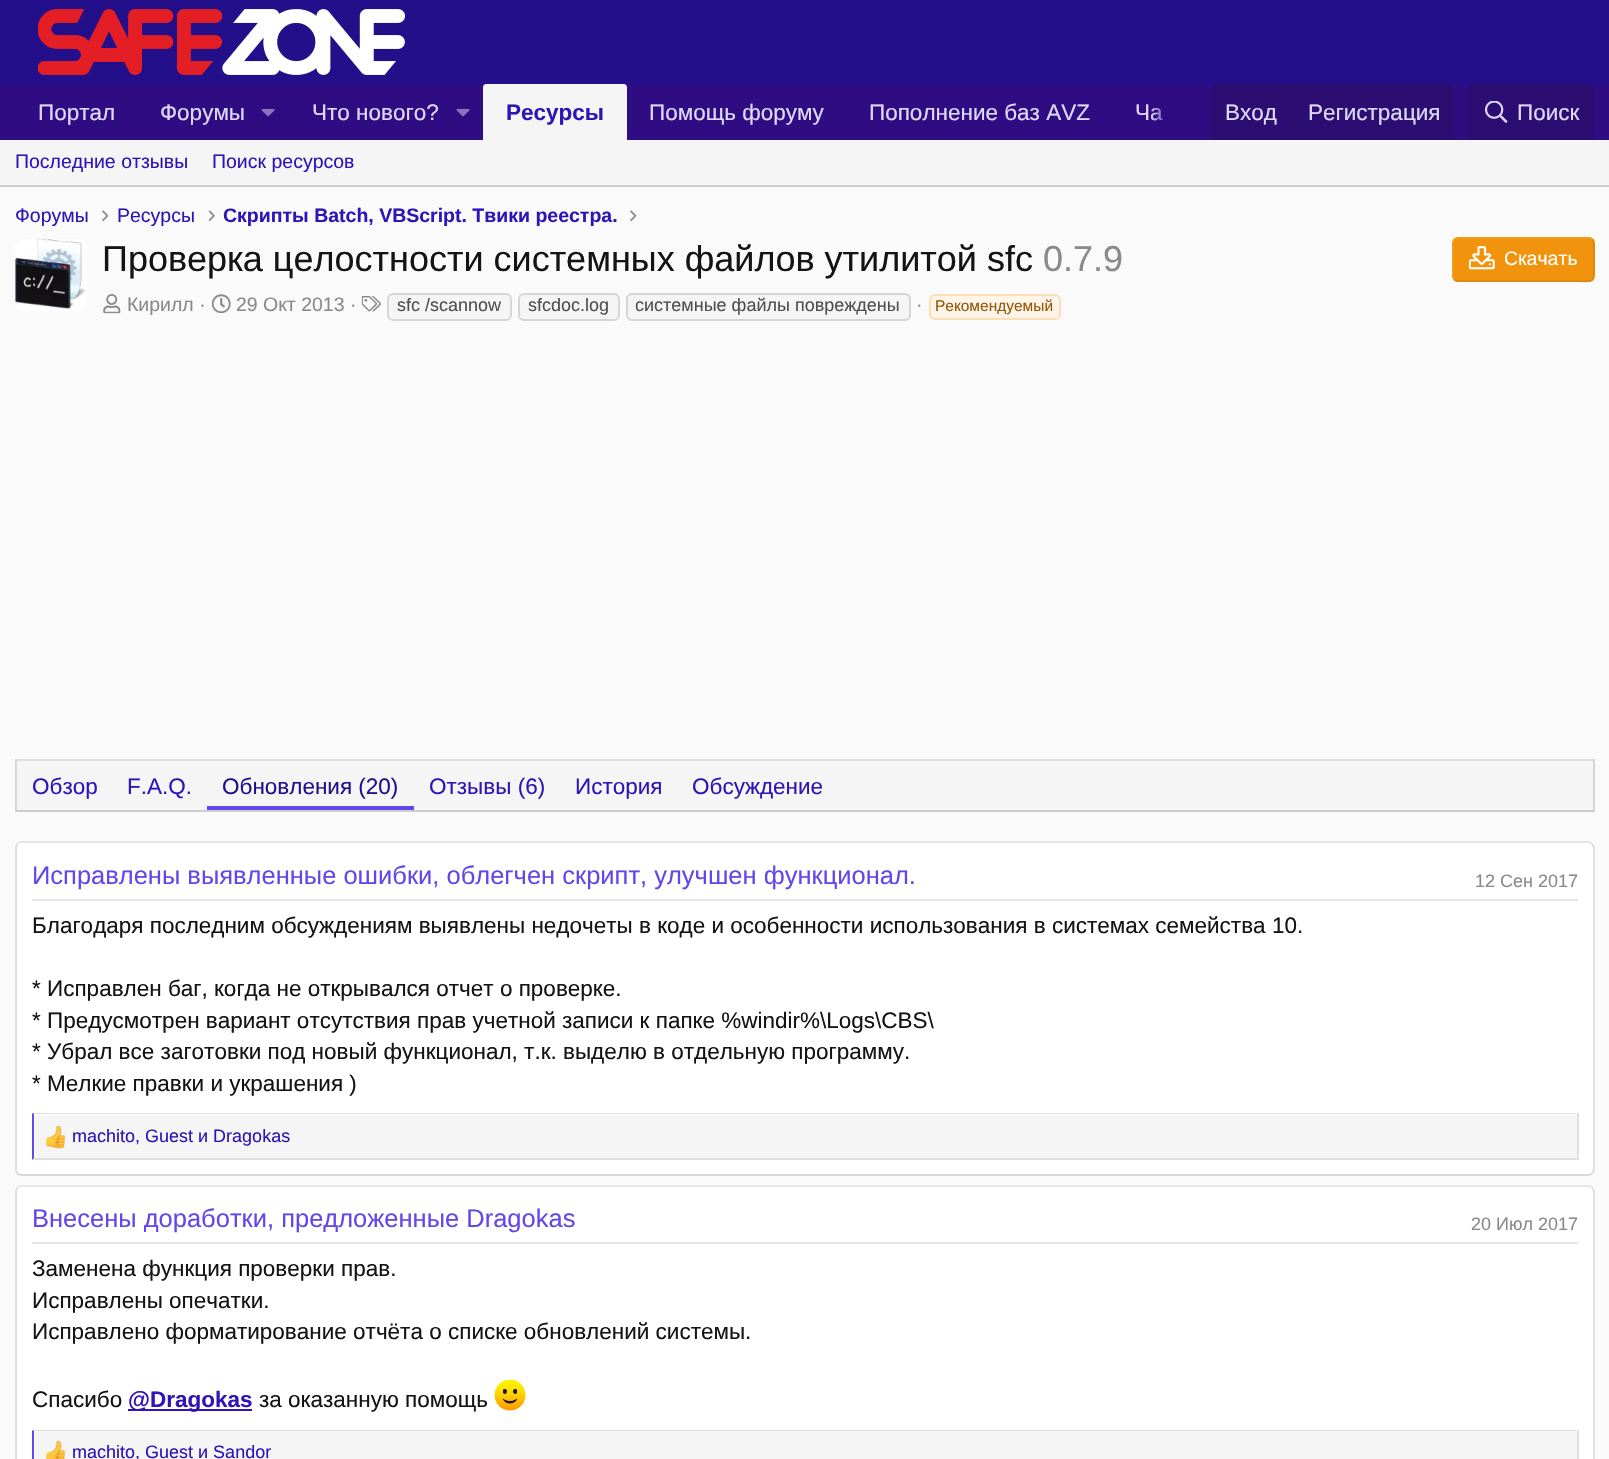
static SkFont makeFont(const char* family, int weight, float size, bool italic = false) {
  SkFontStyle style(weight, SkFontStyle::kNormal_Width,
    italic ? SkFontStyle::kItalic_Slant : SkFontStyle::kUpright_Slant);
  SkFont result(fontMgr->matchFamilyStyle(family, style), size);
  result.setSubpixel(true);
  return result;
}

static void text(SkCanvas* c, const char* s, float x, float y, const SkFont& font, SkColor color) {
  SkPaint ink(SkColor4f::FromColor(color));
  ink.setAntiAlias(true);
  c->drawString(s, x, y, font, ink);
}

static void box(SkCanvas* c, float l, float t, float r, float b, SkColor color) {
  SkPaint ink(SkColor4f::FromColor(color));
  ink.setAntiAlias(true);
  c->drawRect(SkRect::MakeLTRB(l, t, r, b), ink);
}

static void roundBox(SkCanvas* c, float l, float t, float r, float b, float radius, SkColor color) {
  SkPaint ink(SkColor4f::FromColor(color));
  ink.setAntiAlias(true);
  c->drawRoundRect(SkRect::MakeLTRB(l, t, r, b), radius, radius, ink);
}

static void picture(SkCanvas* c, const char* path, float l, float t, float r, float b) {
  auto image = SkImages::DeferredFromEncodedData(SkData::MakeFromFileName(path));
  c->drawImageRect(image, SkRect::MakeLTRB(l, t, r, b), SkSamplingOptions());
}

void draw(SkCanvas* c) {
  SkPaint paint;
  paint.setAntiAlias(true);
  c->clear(0xfffafafa);
  box(c, 0, 0, 1609, 84, 0xff240f8a);
  picture(c, "img_01.png", 38, 9, 405, 75);
  box(c, 0, 84, 1609, 140, 0xff300c83);
  SkFont face1 = makeFont("Liberation Sans", 400, 22.5f);
  text(c, "Портал", 38, 120, face1, 0xffe0dafb);
  text(c, "Форумы", 160, 120, face1, 0xffe0dafb);
  picture(c, "img_02.png", 261, 108, 275, 117);
  text(c, "Что нового?", 312, 120, face1, 0xffe0dafb);
  picture(c, "img_02.png", 456, 108, 470, 117);
  paint.setColor(0xfff5f5f5);
  c->drawPath(SkPathBuilder().moveTo(486, 84).lineTo(624, 84).cubicTo(625.5f, 84, 627, 85.5f, 627, 87).lineTo(627, 140).lineTo(483, 140).lineTo(483, 87).cubicTo(483, 85.5f, 484.5f, 84, 486, 84).close().detach(), paint);
  SkFont face2 = makeFont("Liberation Sans", 700, 22.5f);
  text(c, "Ресурсы", 506, 120, face2, 0xff3014b8);
  text(c, "Помощь форуму", 649, 120, face1, 0xffe0dafb);
  text(c, "Пополнение баз AVZ", 869, 120, face1, 0xffe0dafb);
  text(c, "Ча", 1135, 120, face1, 0xffe0dafb);
  {
    const SkColor colors[] = {0x00300c83, 0xff300c83};
    const float stops[] = {0, 0.33f};
    const SkPoint ends[] = {{1151, 112}, {1211, 112}};
    paint.setShader(SkGradientShader::MakeLinear(ends, colors, stops, 2, SkTileMode::kClamp));
    paint.setAlpha(255);
  }
  c->drawRect(SkRect::MakeLTRB(1151, 108, 1163, 121), paint);
  paint.setShader(nullptr);
  paint.setColor(0xff2c0d72);
  c->drawPath(SkPathBuilder().moveTo(1217, 84).lineTo(1449, 84).cubicTo(1452.5f, 84, 1455, 86.5f, 1455, 90).lineTo(1455, 140).lineTo(1211, 140).lineTo(1211, 90).cubicTo(1211, 86.5f, 1213.5f, 84, 1217, 84).close().detach(), paint);
  text(c, "Вход", 1225, 120, face1, 0xffe0dafb);
  box(c, 1292, 84, 1294, 140, 0xff280e64);
  text(c, "Регистрация", 1308, 120, face1, 0xffe0dafb);
  c->drawPath(SkPathBuilder().moveTo(1473, 84).lineTo(1589, 84).cubicTo(1592.5f, 84, 1595, 86.5f, 1595, 90).lineTo(1595, 140).lineTo(1467, 140).lineTo(1467, 90).cubicTo(1467, 86.5f, 1469.5f, 84, 1473, 84).close().detach(), paint);
  picture(c, "img_03.png", 1485, 101, 1508, 123);
  text(c, "Поиск", 1517, 120, face1, 0xffe0dafb);
  box(c, 0, 140, 1609, 185, 0xfff5f5f5);
  box(c, 0, 185, 1609, 187, 0xffcccccc);
  SkFont face3 = makeFont("Liberation Sans", 400, 19.5f);
  text(c, "Последние отзывы", 15, 168, face3, 0xff3014b8);
  text(c, "Поиск ресурсов", 212, 168, face3, 0xff3014b8);
  text(c, "Форумы", 15, 222, face3, 0xff3014b8);
  picture(c, "img_04.png", 102, 210, 108, 222);
  text(c, "Ресурсы", 117, 222, face3, 0xff3014b8);
  picture(c, "img_05.png", 209, 210, 215, 222);
  SkFont face4 = makeFont("Liberation Sans", 700, 19.5f);
  text(c, "Скрипты Batch, VBScript. Твики реестра.", 223, 222, face4, 0xff3014b8);
  picture(c, "img_06.png", 630, 210, 637, 222);
  roundBox(c, 15, 239, 87, 311, 8, 0xffffffff);
  picture(c, "img_07.png", 15, 238, 86, 309);
  SkFont face5 = makeFont("Liberation Sans", 400, 36);
  text(c, "Проверка целостности системных файлов утилитой sfc", 102, 271, face5, 0xff141414);
  text(c, "0.7.9", 1043, 271, face5, 0xff8a8a8a);
  roundBox(c, 1452, 237, 1595, 282, 6, 0xfff2930d);
  paint.setStyle(SkPaint::kStroke_Style);
  paint.setStrokeWidth(1.5f);
  paint.setColor(0xffda840b);
  c->drawPath(SkPathBuilder().moveTo(1592, 239.5f).cubicTo(1594.5f, 241.5f, 1594, 245.5f, 1594, 248.5f).lineTo(1594, 259.5f).cubicTo(1594, 286.5f, 1596.5f, 281, 1567, 281).lineTo(1458, 281).cubicTo(1456.5f, 281, 1455.5f, 280.5f, 1454.5f, 279.5f).detach(), paint);
  paint.setColor(0xfff49d25);
  c->drawPath(SkPathBuilder().moveTo(1454.5f, 279.5f).cubicTo(1452, 277.5f, 1453, 273.5f, 1453, 270.5f).lineTo(1453, 259.5f).cubicTo(1453, 232.5f, 1450, 238, 1480, 238).lineTo(1588.5f, 238).cubicTo(1590, 238, 1591, 238.5f, 1592, 239.5f).detach(), paint);
  picture(c, "img_08.png", 1468, 246, 1495, 270);
  text(c, "Скачать", 1504, 265, face3, 0xffffffff);
  picture(c, "img_09.png", 103, 294, 121, 314);
  text(c, "Кирилл ·", 127, 311, face3, 0xff8a8a8a);
  picture(c, "img_10.png", 211, 294, 231, 314);
  text(c, "29 Окт 2013 ·", 236, 311, face3, 0xff8a8a8a);
  picture(c, "img_11.png", 361, 296, 381, 312);
  paint.setStyle(SkPaint::kFill_Style);
  paint.setColor(0xfff5f5f5);
  c->drawRoundRect(SkRect::MakeLTRB(388, 294, 511, 320), 5, 5, paint);
  paint.setStyle(SkPaint::kStroke_Style);
  paint.setStrokeWidth(2);
  paint.setColor(0xffd6d6d6);
  c->drawRoundRect(SkRect::MakeLTRB(388, 294, 511, 320), 5, 5, paint);
  SkFont face6 = makeFont("Liberation Sans", 400, 18);
  text(c, "sfc /scannow", 397, 311, face6, 0xff4f4f4f);
  paint.setStyle(SkPaint::kFill_Style);
  paint.setColor(0xfff5f5f5);
  c->drawRoundRect(SkRect::MakeLTRB(519, 294, 619, 320), 5, 5, paint);
  paint.setStyle(SkPaint::kStroke_Style);
  paint.setColor(0xffd6d6d6);
  c->drawRoundRect(SkRect::MakeLTRB(519, 294, 619, 320), 5, 5, paint);
  text(c, "sfcdoc.log", 528, 311, face6, 0xff4f4f4f);
  paint.setStyle(SkPaint::kFill_Style);
  paint.setColor(0xfff5f5f5);
  c->drawRoundRect(SkRect::MakeLTRB(627, 294, 910, 320), 5, 5, paint);
  paint.setStyle(SkPaint::kStroke_Style);
  paint.setColor(0xffd6d6d6);
  c->drawRoundRect(SkRect::MakeLTRB(627, 294, 910, 320), 5, 5, paint);
  text(c, "системные файлы повреждены", 635, 311, face6, 0xff4f4f4f);
  text(c, "·", 916, 311, face3, 0xff8a8a8a);
  paint.setStyle(SkPaint::kFill_Style);
  paint.setColor(0xfffef4e7);
  c->drawRoundRect(SkRect::MakeLTRB(930, 295, 1060, 319), 5, 5, paint);
  paint.setStyle(SkPaint::kStroke_Style);
  paint.setColor(0xfffbdeb6);
  c->drawRoundRect(SkRect::MakeLTRB(930, 295, 1060, 319), 5, 5, paint);
  SkFont face7 = makeFont("Liberation Sans", 400, 15.5f);
  text(c, "Рекомендуемый", 935, 311, face7, 0xff915808);
  box(c, 17, 761, 1593, 810, 0xfff5f5f5);
  box(c, 15, 759, 1595, 761, 0xffe0e0e0);
  box(c, 1593, 759, 1595, 812, 0xffd6d6d6);
  box(c, 15, 810, 1595, 812, 0xffcccccc);
  box(c, 15, 759, 17, 812, 0xffd6d6d6);
  text(c, "Обзор", 32, 794, face1, 0xff3014b8);
  text(c, "F.A.Q.", 127, 794, face1, 0xff3014b8);
  box(c, 207, 806, 414, 810, 0xff6347eb);
  text(c, "Обновления (20)", 222, 794, face1, 0xff240f8a);
  text(c, "Отзывы (6)", 429, 794, face1, 0xff3014b8);
  text(c, "История", 575, 794, face1, 0xff3014b8);
  text(c, "Обсуждение", 692, 794, face1, 0xff3014b8);
  roundBox(c, 15, 842, 1595, 1176, 6, 0xffffffff);
  paint.setStrokeWidth(1.5f);
  paint.setColor(0xffe0e0e0);
  c->drawPath(SkPathBuilder().moveTo(17.5f, 844).cubicTo(18.5f, 843, 19.5f, 842, 21, 842).lineTo(1588.5f, 842).cubicTo(1590, 842, 1591, 843, 1592, 844).detach(), paint);
  paint.setColor(0xffd6d6d6);
  c->drawPath(SkPathBuilder().moveTo(1592, 844).cubicTo(1593, 845, 1594, 846, 1594, 847.5f).lineTo(1594, 1170).cubicTo(1594, 1171.5f, 1593, 1172.5f, 1592, 1173.5f).detach(), paint);
  paint.setColor(0xffcccccc);
  c->drawPath(SkPathBuilder().moveTo(1592, 1173.5f).cubicTo(1591, 1174.5f, 1590, 1175, 1588.5f, 1175).lineTo(21, 1175).cubicTo(19.5f, 1175, 18.5f, 1174.5f, 17.5f, 1173.5f).detach(), paint);
  paint.setColor(0xffd6d6d6);
  c->drawPath(SkPathBuilder().moveTo(17.5f, 1173.5f).cubicTo(16.5f, 1172.5f, 16, 1171.5f, 16, 1170).lineTo(16, 847.5f).cubicTo(16, 846, 16.5f, 845, 17.5f, 844).detach(), paint);
  box(c, 32, 899, 1578, 901, 0xffe6e6e6);
  SkFont face8 = makeFont("Liberation Sans", 400, 25.5f);
  text(c, "Исправлены выявленные ошибки, облегчен скрипт, улучшен функционал.", 32, 884, face8, 0xff6347eb);
  text(c, "12 Сен 2017", 1475, 887, face6, 0xff8a8a8a);
  text(c, "Благодаря последним обсуждениям выявлены недочеты в коде и особенности использования в системах семейства 10.", 32, 933, face1, 0xff141414);
  text(c, "* Исправлен баг, когда не открывался отчет о проверке.", 32, 996, face1, 0xff141414);
  text(c, "* Предусмотрен вариант отсутствия прав учетной записи к папке %windir%\\Logs\\CBS\\", 32, 1028, face1, 0xff141414);
  text(c, "* Убрал все заготовки под новый функционал, т.к. выделю в отдельную программу.", 32, 1059, face1, 0xff141414);
  text(c, "* Мелкие правки и украшения )", 32, 1091, face1, 0xff141414);
  box(c, 35, 1115, 1577, 1158, 0xfff5f5f5);
  paint.setStyle(SkPaint::kFill_Style);
  paint.setColor(0xffe0e0e0);
  c->drawPath(SkPathBuilder().moveTo(32, 1113).lineTo(1578, 1113).lineTo(1576, 1114).lineTo(34, 1114).close().detach(), paint);
  box(c, 1577, 1113, 1579, 1160, 0xffe0e0e0);
  c->drawPath(SkPathBuilder().moveTo(1578, 1160).lineTo(32, 1160).lineTo(34, 1158).lineTo(1576, 1158).close().detach(), paint);
  paint.setColor(0xff6347eb);
  c->drawPath(SkPathBuilder().moveTo(32, 1160).lineTo(32, 1113).lineTo(34, 1114).lineTo(34, 1158).close().detach(), paint);
  picture(c, "img_12.png", 45, 1125, 66, 1149);
  text(c, "machito, Guest и Dragokas", 72, 1142, face6, 0xff3014b8);
  roundBox(c, 15, 1185, 1595, 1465, 6, 0xffffffff);
  paint.setStyle(SkPaint::kStroke_Style);
  paint.setColor(0xffe0e0e0);
  c->drawPath(SkPathBuilder().moveTo(17.5f, 1187.5f).cubicTo(18.5f, 1186.5f, 19.5f, 1186, 21, 1186).lineTo(1588.5f, 1186).cubicTo(1590, 1186, 1591, 1186.5f, 1592, 1187.5f).detach(), paint);
  paint.setColor(0xffd6d6d6);
  c->drawPath(SkPathBuilder().moveTo(1592, 1187.5f).cubicTo(1593, 1188.5f, 1594, 1189.5f, 1594, 1191).lineTo(1594, 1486.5f).cubicTo(1594, 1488, 1593, 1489, 1592, 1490).detach(), paint);
  c->drawPath(SkPathBuilder().moveTo(17.5f, 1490).cubicTo(16.5f, 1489, 16, 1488, 16, 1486.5f).lineTo(16, 1191).cubicTo(16, 1189.5f, 16.5f, 1188.5f, 17.5f, 1187.5f).detach(), paint);
  box(c, 32, 1242, 1578, 1244, 0xffe6e6e6);
  text(c, "Внесены доработки, предложенные Dragokas", 32, 1227, face8, 0xff6347eb);
  text(c, "20 Июл 2017", 1471, 1230, face6, 0xff8a8a8a);
  text(c, "Заменена функция проверки прав.", 32, 1276, face1, 0xff141414);
  text(c, "Исправлены опечатки.", 32, 1308, face1, 0xff141414);
  text(c, "Исправлено форматирование отчёта о списке обновлений системы.", 32, 1339, face1, 0xff141414);
  text(c, "Спасибо", 32, 1407, face1, 0xff141414);
  box(c, 128, 1409, 252, 1411, 0xff3014b8);
  text(c, "@Dragokas", 128, 1407, face2, 0xff3014b8);
  text(c, "за оказанную помощь", 259, 1407, face1, 0xff141414);
  picture(c, "img_13.png", 494, 1379, 526, 1411);
  box(c, 35, 1431, 1577, 1459, 0xfff5f5f5);
  paint.setStyle(SkPaint::kFill_Style);
  paint.setColor(0xffe0e0e0);
  c->drawPath(SkPathBuilder().moveTo(32, 1430).lineTo(1578, 1430).lineTo(1576, 1431).lineTo(34, 1431).close().detach(), paint);
  box(c, 1577, 1430, 1579, 1459, 0xffe0e0e0);
  paint.setColor(0xff6347eb);
  c->drawPath(SkPathBuilder().moveTo(32, 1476).lineTo(32, 1430).lineTo(34, 1431).lineTo(34, 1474).close().detach(), paint);
  picture(c, "img_14.png", 45, 1440, 66, 1459);
  text(c, "machito, Guest и Sandor", 72, 1458, face6, 0xff3014b8);
}
